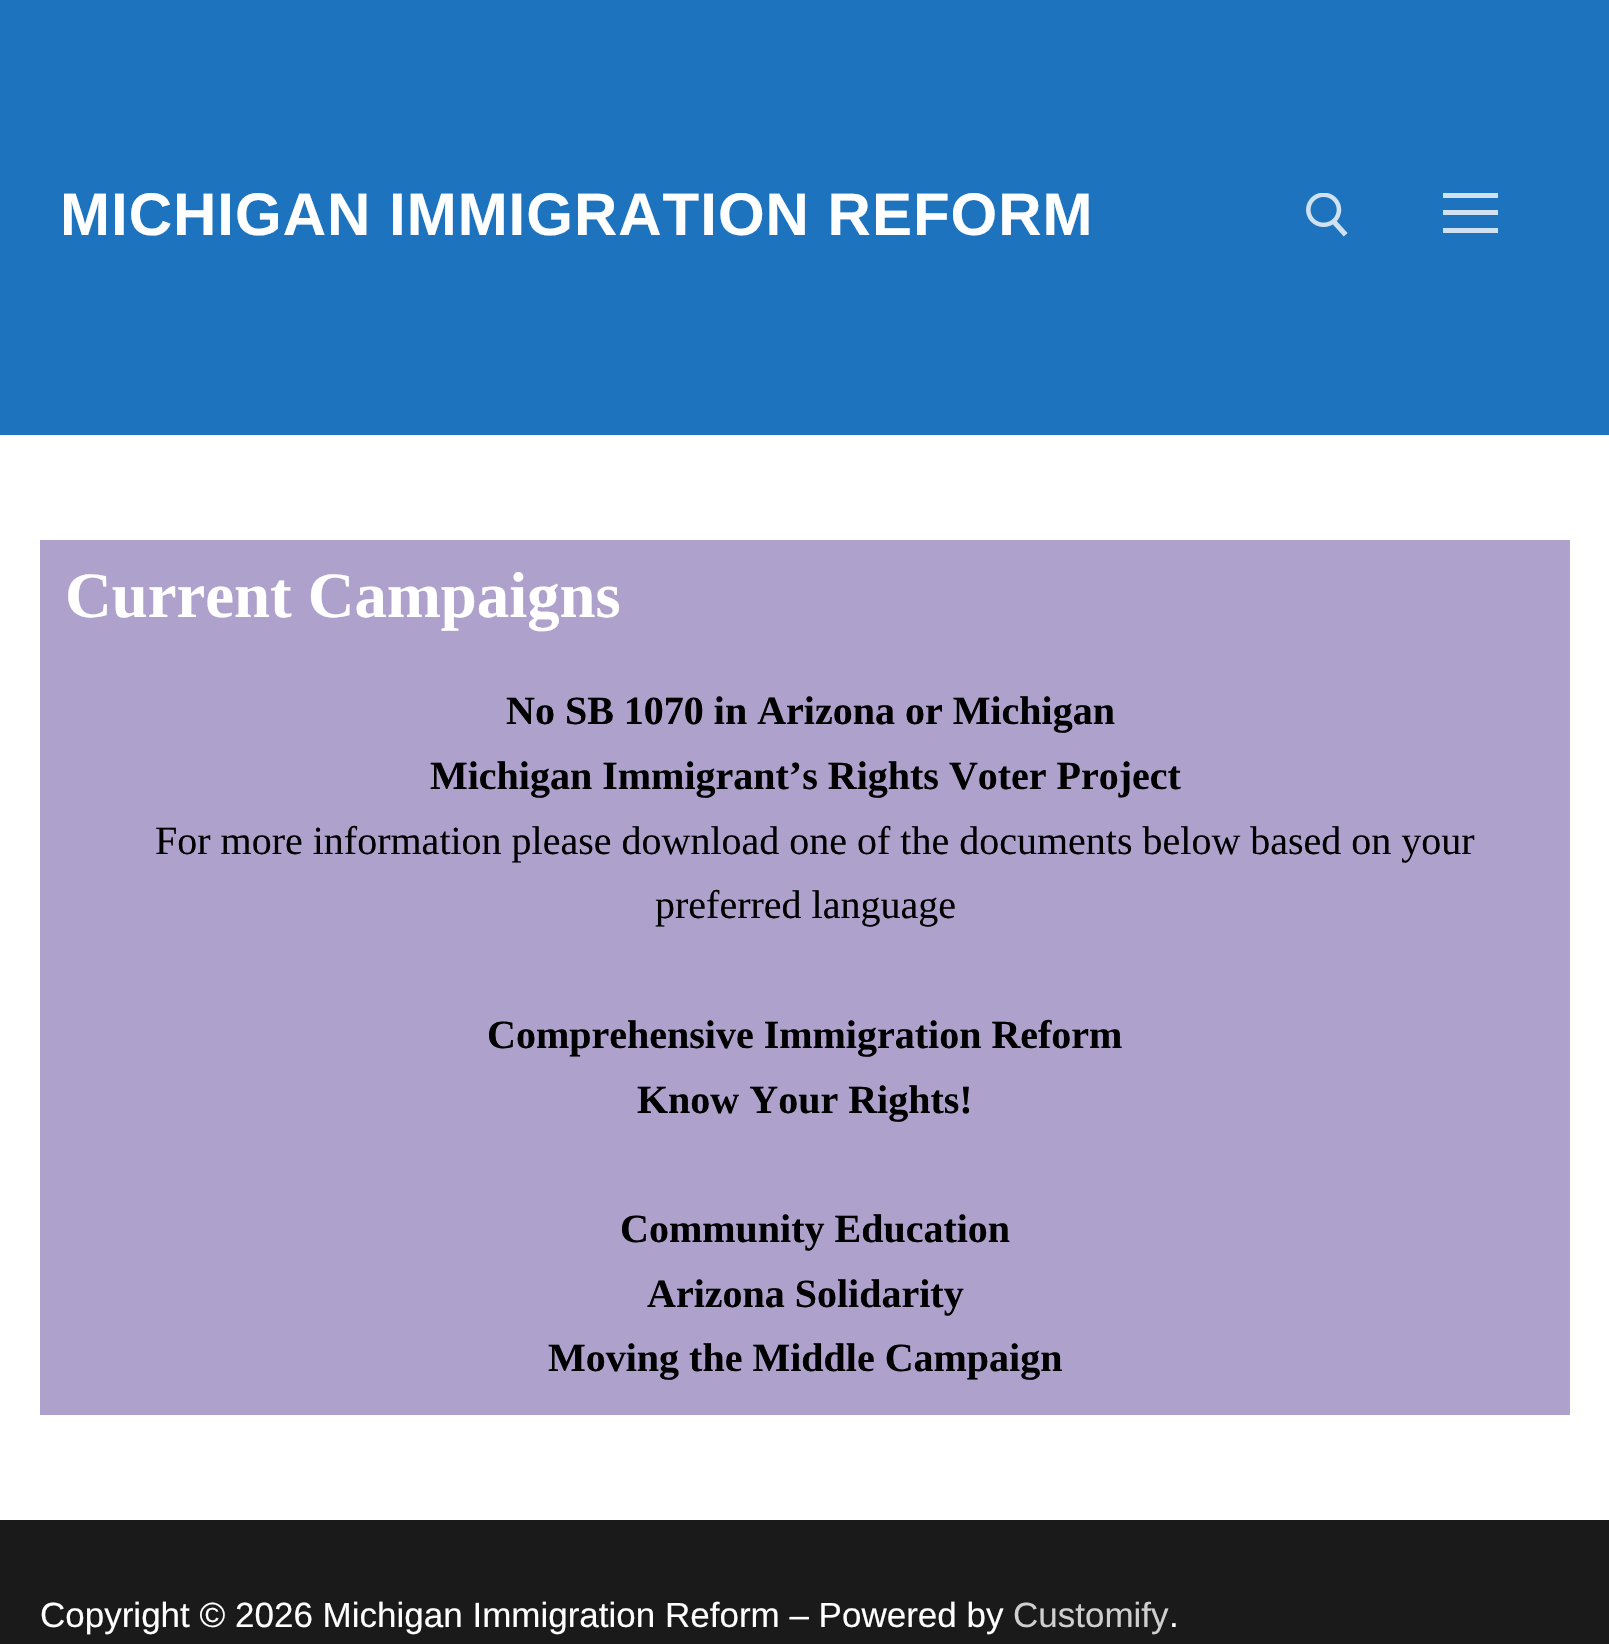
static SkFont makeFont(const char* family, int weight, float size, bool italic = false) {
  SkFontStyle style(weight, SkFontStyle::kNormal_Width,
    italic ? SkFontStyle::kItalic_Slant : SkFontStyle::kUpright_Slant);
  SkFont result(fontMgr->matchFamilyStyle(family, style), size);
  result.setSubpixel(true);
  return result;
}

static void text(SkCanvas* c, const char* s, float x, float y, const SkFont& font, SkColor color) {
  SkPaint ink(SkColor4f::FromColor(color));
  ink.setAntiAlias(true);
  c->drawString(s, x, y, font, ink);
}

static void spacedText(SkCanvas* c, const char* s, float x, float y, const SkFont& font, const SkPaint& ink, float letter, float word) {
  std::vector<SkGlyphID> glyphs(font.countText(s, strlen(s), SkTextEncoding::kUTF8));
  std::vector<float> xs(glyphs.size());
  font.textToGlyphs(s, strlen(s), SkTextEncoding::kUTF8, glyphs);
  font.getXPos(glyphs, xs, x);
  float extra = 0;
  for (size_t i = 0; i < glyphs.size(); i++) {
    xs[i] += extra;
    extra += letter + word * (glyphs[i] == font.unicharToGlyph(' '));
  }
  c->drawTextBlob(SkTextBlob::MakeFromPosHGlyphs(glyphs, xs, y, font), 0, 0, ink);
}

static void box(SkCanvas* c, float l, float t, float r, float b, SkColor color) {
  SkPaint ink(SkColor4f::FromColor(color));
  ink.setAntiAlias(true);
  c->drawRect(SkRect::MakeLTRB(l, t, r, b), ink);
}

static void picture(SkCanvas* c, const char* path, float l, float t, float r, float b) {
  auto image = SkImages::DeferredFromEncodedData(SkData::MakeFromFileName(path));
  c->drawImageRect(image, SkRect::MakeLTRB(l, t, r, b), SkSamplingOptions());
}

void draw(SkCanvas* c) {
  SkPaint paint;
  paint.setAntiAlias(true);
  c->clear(0xffffffff);
  box(c, 0, 0, 1609, 435, 0xff1e73be);
  SkFont face1 = makeFont("Liberation Sans", 700, 60);
  paint.setColor(0xffffffff);
  spacedText(c, "MICHIGAN IMMIGRATION REFORM", 60, 235, face1, paint, 1, 0);
  picture(c, "img_01.png", 1306, 193, 1348, 237);
  box(c, 1443, 210, 1498, 215, 0xffd0e2f1);
  box(c, 1443, 193, 1498, 198, 0xffd0e2f1);
  box(c, 1443, 228, 1498, 233, 0xffd0e2f1);
  box(c, 40, 540, 1570, 1415, 0xffaea1cc);
  SkFont face2 = makeFont("Liberation Serif", 700, 64.75f);
  text(c, "Current Campaigns", 65, 617, face2, 0xffffffff);
  SkFont face3 = makeFont("Liberation Serif", 700, 40);
  text(c, "No SB 1070 in Arizona or Michigan", 506, 724, face3, 0xff000000);
  text(c, "Michigan Immigrant’s Rights Voter Project", 430, 789, face3, 0xff000000);
  SkFont face4 = makeFont("Liberation Serif", 400, 40);
  text(c, "For more information please download one of the documents below based on your", 155, 854, face4, 0xff000000);
  text(c, "preferred language", 655, 918, face4, 0xff000000);
  text(c, "Comprehensive Immigration Reform", 487, 1048, face3, 0xff000000);
  text(c, "Know Your Rights!", 637, 1113, face3, 0xff000000);
  text(c, "Community Education", 620, 1242, face3, 0xff000000);
  text(c, "Arizona Solidarity", 647, 1307, face3, 0xff000000);
  text(c, "Moving the Middle Campaign", 548, 1371, face3, 0xff000000);
  box(c, 0, 1520, 1609, 1644, 0xff1a1a1a);
  SkFont face5 = makeFont("Liberation Sans", 400, 35);
  text(c, "Copyright © 2026 Michigan Immigration Reform – Powered by", 40, 1627, face5, 0xffffffff);
  text(c, "Customify", 1013, 1627, face5, 0xffcfcfcf);
  text(c, ".", 1169, 1627, face5, 0xffffffff);
}
